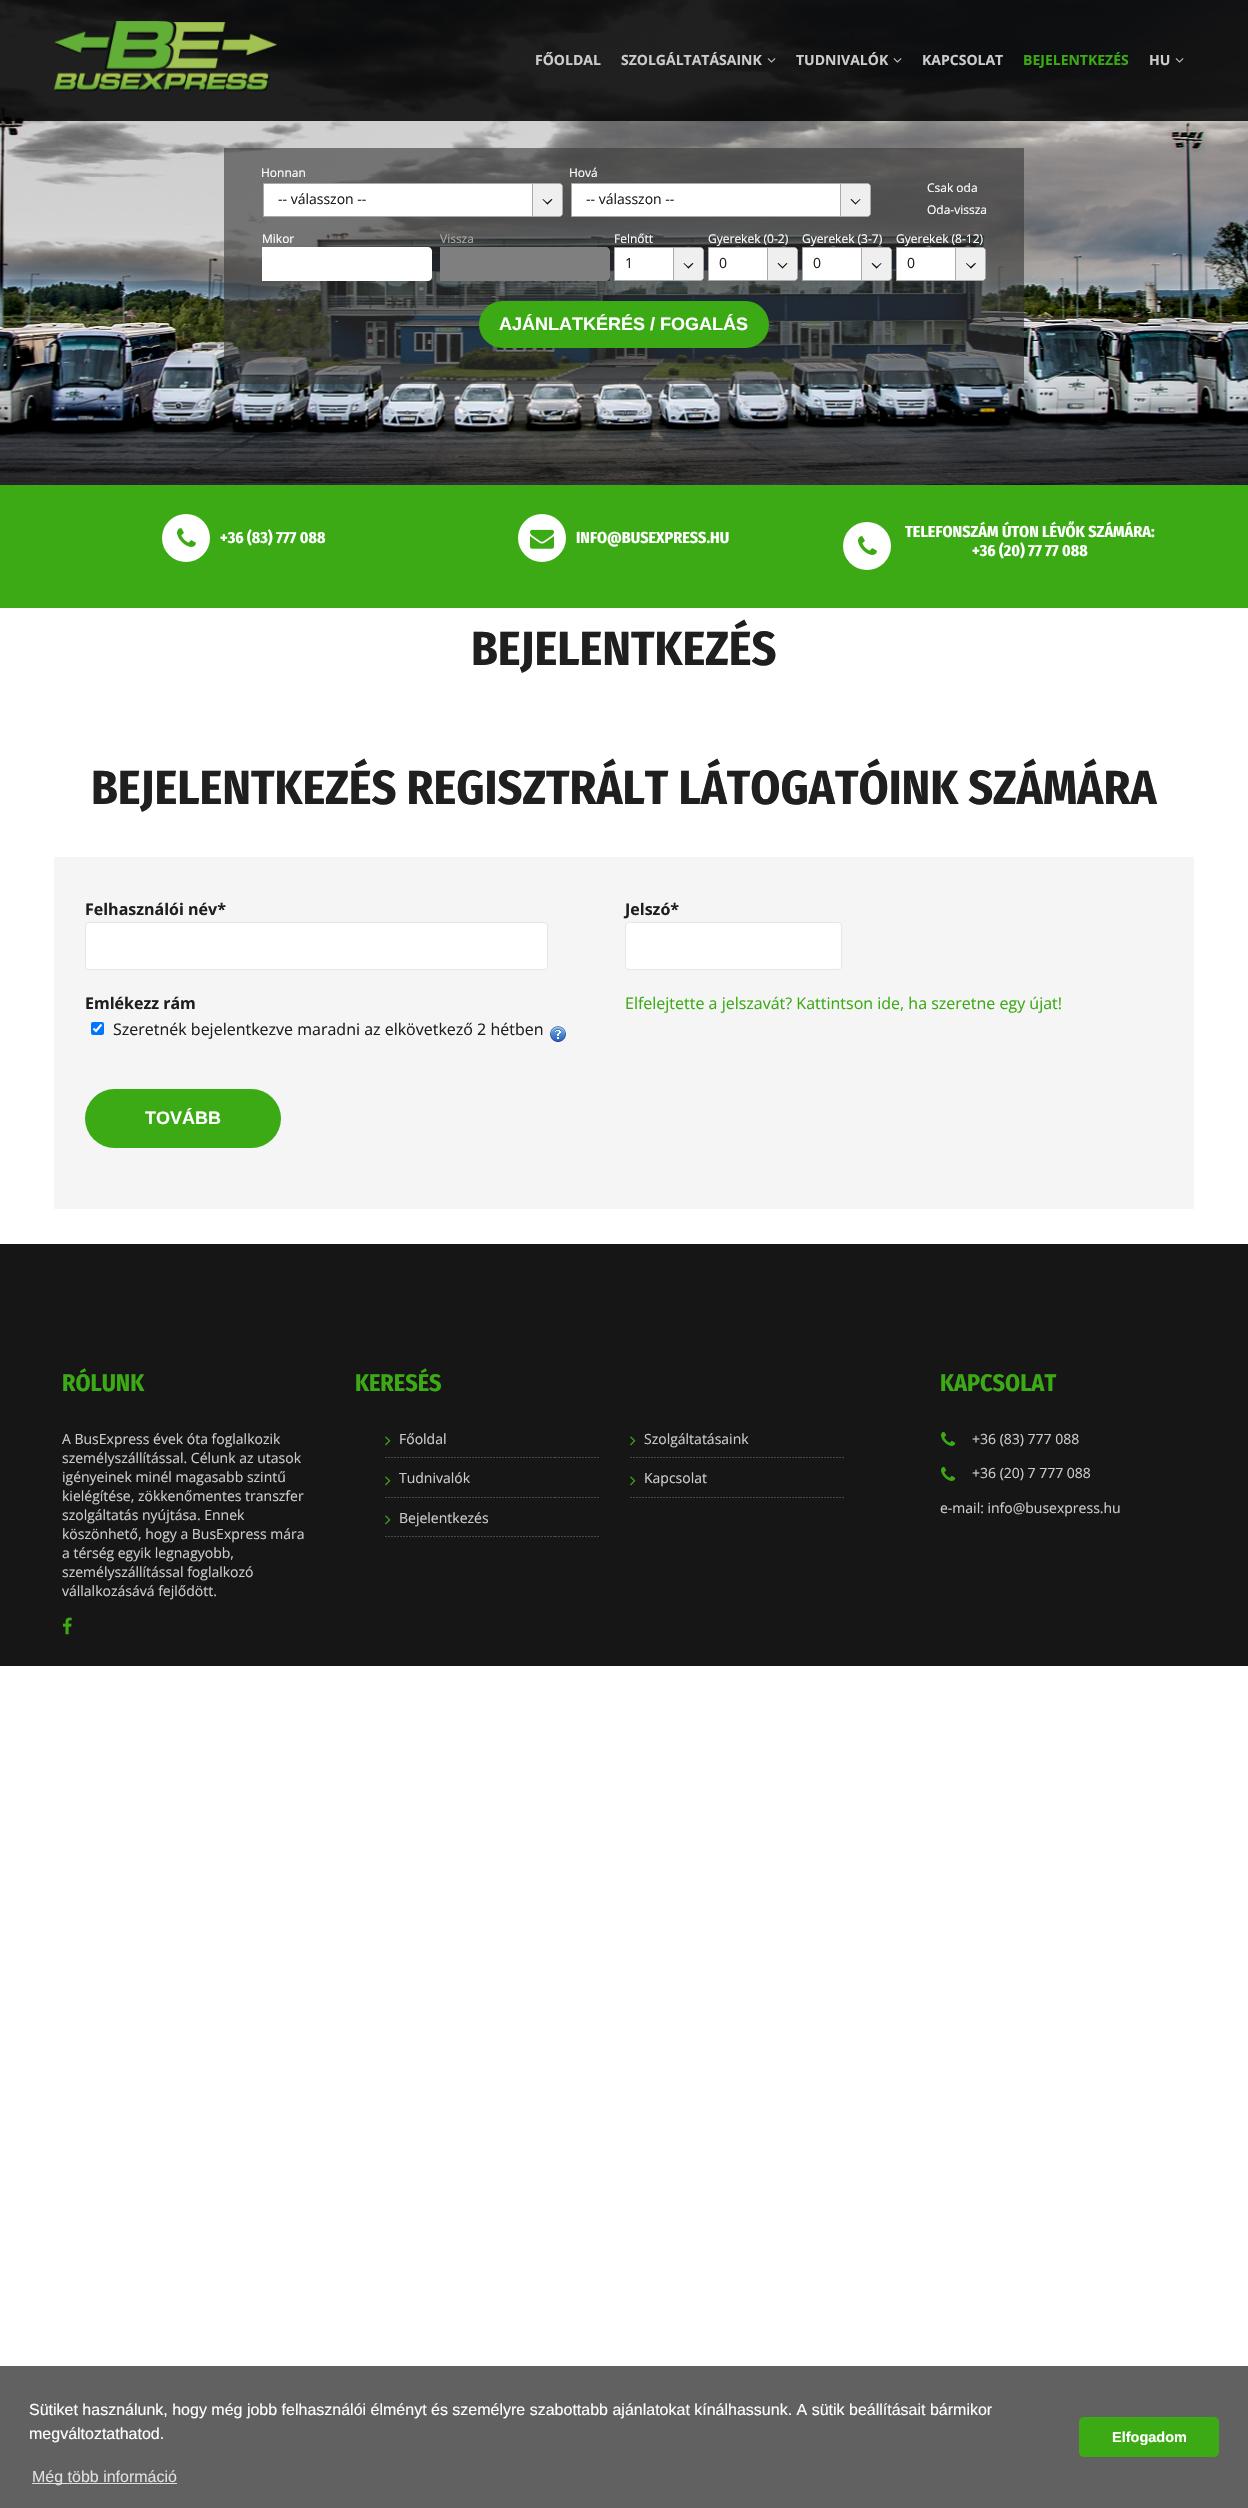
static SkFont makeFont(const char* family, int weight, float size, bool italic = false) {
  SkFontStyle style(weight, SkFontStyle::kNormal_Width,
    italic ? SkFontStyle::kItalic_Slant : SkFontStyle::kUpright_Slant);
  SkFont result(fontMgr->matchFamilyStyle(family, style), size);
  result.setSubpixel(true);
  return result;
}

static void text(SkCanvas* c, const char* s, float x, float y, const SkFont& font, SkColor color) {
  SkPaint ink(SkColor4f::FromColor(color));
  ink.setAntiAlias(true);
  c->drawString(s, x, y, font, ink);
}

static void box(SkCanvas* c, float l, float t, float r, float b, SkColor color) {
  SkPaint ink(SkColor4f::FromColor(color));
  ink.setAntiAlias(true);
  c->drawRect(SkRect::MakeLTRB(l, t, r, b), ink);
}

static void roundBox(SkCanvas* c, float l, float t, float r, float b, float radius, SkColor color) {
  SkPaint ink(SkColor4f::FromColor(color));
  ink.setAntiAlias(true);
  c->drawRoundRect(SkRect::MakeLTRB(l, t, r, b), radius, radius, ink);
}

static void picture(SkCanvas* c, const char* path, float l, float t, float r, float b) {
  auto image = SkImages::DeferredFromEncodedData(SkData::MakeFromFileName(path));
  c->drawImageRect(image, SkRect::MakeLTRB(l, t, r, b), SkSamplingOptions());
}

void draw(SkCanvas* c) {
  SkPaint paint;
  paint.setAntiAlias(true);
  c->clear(0xffffffff);
  picture(c, "img_05.png", 0, 0, 1248, 485);
  box(c, 0, 0, 1248, 121, 0xd9000000);
  picture(c, "img_01.png", 54, 21, 277, 92);
  SkFont face1 = makeFont("Open Sans", 700, 14);
  text(c, "FŐOLDAL", 535, 65, face1, 0xffcccccc);
  text(c, "SZOLGÁLTATÁSAINK", 621, 65, face1, 0xffcccccc);
  picture(c, "img_02.png", 767, 58, 776, 63);
  text(c, "TUDNIVALÓK", 796, 65, face1, 0xffcccccc);
  picture(c, "img_03.png", 893, 58, 902, 63);
  text(c, "KAPCSOLAT", 922, 65, face1, 0xffcccccc);
  text(c, "BEJELENTKEZÉS", 1023, 65, face1, 0xff3caa15);
  text(c, "HU", 1149, 65, face1, 0xffcccccc);
  picture(c, "img_04.png", 1175, 58, 1184, 63);
  box(c, 224, 148, 1024, 384, 0x99353535);
  SkFont face2 = makeFont("Open Sans", 400, 12);
  text(c, "Honnan", 261, 177, face2, 0xffffffff);
  paint.setColor(0xffffffff);
  c->drawPath(SkPathBuilder().moveTo(263.5f, 183.5f).lineTo(559, 183.5f).cubicTo(561, 183.5f, 562.5f, 185, 562.5f, 187).lineTo(562.5f, 213).cubicTo(562.5f, 215, 561, 216.5f, 559, 216.5f).lineTo(263.5f, 216.5f).close().detach(), paint);
  paint.setStyle(SkPaint::kStroke_Style);
  paint.setStrokeWidth(1);
  paint.setColor(0xffa9a9a9);
  c->drawPath(SkPathBuilder().moveTo(263.5f, 183.5f).lineTo(559, 183.5f).cubicTo(561, 183.5f, 562.5f, 185, 562.5f, 187).lineTo(562.5f, 213).cubicTo(562.5f, 215, 561, 216.5f, 559, 216.5f).lineTo(263.5f, 216.5f).close().detach(), paint);
  SkFont face3 = makeFont("Open Sans", 400, 14);
  text(c, "-- válasszon --", 278, 204, face3, 0xff1f1f1f);
  paint.setStyle(SkPaint::kFill_Style);
  paint.setColor(0xffefefef);
  c->drawPath(SkPathBuilder().moveTo(532, 184).lineTo(559, 184).cubicTo(560.5f, 184, 562, 185.5f, 562, 187).lineTo(562, 213).cubicTo(562, 214.5f, 560.5f, 216, 559, 216).lineTo(532, 216).close().detach(), paint);
  box(c, 532, 184, 533, 216, 0xffa9a9a9);
  paint.setColor(0xff000000);
  c->drawPath(SkPathBuilder().moveTo(551.5f, 199).lineTo(552.5f, 199.5f).lineTo(547.5f, 204.5f).lineTo(546.5f, 203.5f).close().detach(), paint);
  c->drawPath(SkPathBuilder().moveTo(543, 199).lineTo(548, 203.5f).lineTo(547.5f, 204.5f).lineTo(542.5f, 199.5f).close().detach(), paint);
  text(c, "Hová", 569, 177, face2, 0xffffffff);
  paint.setColor(0xffffffff);
  c->drawPath(SkPathBuilder().moveTo(571.5f, 183.5f).lineTo(867, 183.5f).cubicTo(869, 183.5f, 870.5f, 185, 870.5f, 187).lineTo(870.5f, 213).cubicTo(870.5f, 215, 869, 216.5f, 867, 216.5f).lineTo(571.5f, 216.5f).close().detach(), paint);
  paint.setStyle(SkPaint::kStroke_Style);
  paint.setColor(0xffa9a9a9);
  c->drawPath(SkPathBuilder().moveTo(571.5f, 183.5f).lineTo(867, 183.5f).cubicTo(869, 183.5f, 870.5f, 185, 870.5f, 187).lineTo(870.5f, 213).cubicTo(870.5f, 215, 869, 216.5f, 867, 216.5f).lineTo(571.5f, 216.5f).close().detach(), paint);
  text(c, "-- válasszon --", 586, 204, face3, 0xff1f1f1f);
  paint.setStyle(SkPaint::kFill_Style);
  paint.setColor(0xffefefef);
  c->drawPath(SkPathBuilder().moveTo(840, 184).lineTo(867, 184).cubicTo(868.5f, 184, 870, 185.5f, 870, 187).lineTo(870, 213).cubicTo(870, 214.5f, 868.5f, 216, 867, 216).lineTo(840, 216).close().detach(), paint);
  box(c, 840, 184, 841, 216, 0xffa9a9a9);
  paint.setColor(0xff000000);
  c->drawPath(SkPathBuilder().moveTo(860, 199).lineTo(860.5f, 199.5f).lineTo(855.5f, 204.5f).lineTo(855, 203.5f).close().detach(), paint);
  c->drawPath(SkPathBuilder().moveTo(851.5f, 199).lineTo(856, 203.5f).lineTo(855.5f, 204.5f).lineTo(850.5f, 199.5f).close().detach(), paint);
  text(c, "Csak oda", 927, 192, face2, 0xffffffff);
  text(c, "Oda-vissza", 927, 214, face2, 0xffffffff);
  text(c, "Mikor", 262, 243, face2, 0xffffffff);
  paint.setColor(0xffffffff);
  c->drawPath(SkPathBuilder().moveTo(262, 247).lineTo(428, 247).cubicTo(430, 247, 432, 249, 432, 251).lineTo(432, 277).cubicTo(432, 279, 430, 281, 428, 281).lineTo(262, 281).close().detach(), paint);
  text(c, "Vissza", 440, 243, face2, 0xffa9a9a9);
  c->drawPath(SkPathBuilder().moveTo(440, 247).lineTo(606, 247).cubicTo(608, 247, 610, 249, 610, 251).lineTo(610, 277).cubicTo(610, 279, 608, 281, 606, 281).lineTo(440, 281).close().detach(), paint);
  box(c, 440, 247, 610, 281, 0x80000000);
  text(c, "Felnőtt", 614, 243, face2, 0xffffffff);
  c->drawPath(SkPathBuilder().moveTo(614.5f, 247.5f).lineTo(700, 247.5f).cubicTo(702, 247.5f, 703.5f, 249, 703.5f, 251).lineTo(703.5f, 277).cubicTo(703.5f, 279, 702, 280.5f, 700, 280.5f).lineTo(614.5f, 280.5f).close().detach(), paint);
  paint.setStyle(SkPaint::kStroke_Style);
  paint.setColor(0xffa9a9a9);
  c->drawPath(SkPathBuilder().moveTo(614.5f, 247.5f).lineTo(700, 247.5f).cubicTo(702, 247.5f, 703.5f, 249, 703.5f, 251).lineTo(703.5f, 277).cubicTo(703.5f, 279, 702, 280.5f, 700, 280.5f).lineTo(614.5f, 280.5f).close().detach(), paint);
  text(c, "1", 625, 268, face3, 0xff1f1f1f);
  paint.setStyle(SkPaint::kFill_Style);
  paint.setColor(0xffefefef);
  c->drawPath(SkPathBuilder().moveTo(673, 248).lineTo(700, 248).cubicTo(701.5f, 248, 703, 249.5f, 703, 251).lineTo(703, 277).cubicTo(703, 278.5f, 701.5f, 280, 700, 280).lineTo(673, 280).close().detach(), paint);
  box(c, 673, 248, 674, 280, 0xffa9a9a9);
  paint.setColor(0xff000000);
  c->drawPath(SkPathBuilder().moveTo(692.5f, 263).lineTo(693.5f, 263.5f).lineTo(688.5f, 268.5f).lineTo(687.5f, 267.5f).close().detach(), paint);
  c->drawPath(SkPathBuilder().moveTo(684, 263).lineTo(689, 267.5f).lineTo(688.5f, 268.5f).lineTo(683.5f, 263.5f).close().detach(), paint);
  text(c, "Gyerekek (0-2)", 708, 243, face2, 0xffffffff);
  paint.setColor(0xffffffff);
  c->drawPath(SkPathBuilder().moveTo(708.5f, 247.5f).lineTo(794, 247.5f).cubicTo(796, 247.5f, 797.5f, 249, 797.5f, 251).lineTo(797.5f, 277).cubicTo(797.5f, 279, 796, 280.5f, 794, 280.5f).lineTo(708.5f, 280.5f).close().detach(), paint);
  paint.setStyle(SkPaint::kStroke_Style);
  paint.setColor(0xffa9a9a9);
  c->drawPath(SkPathBuilder().moveTo(708.5f, 247.5f).lineTo(794, 247.5f).cubicTo(796, 247.5f, 797.5f, 249, 797.5f, 251).lineTo(797.5f, 277).cubicTo(797.5f, 279, 796, 280.5f, 794, 280.5f).lineTo(708.5f, 280.5f).close().detach(), paint);
  text(c, "0", 719, 268, face3, 0xff1f1f1f);
  paint.setStyle(SkPaint::kFill_Style);
  paint.setColor(0xffefefef);
  c->drawPath(SkPathBuilder().moveTo(767, 248).lineTo(794, 248).cubicTo(795.5f, 248, 797, 249.5f, 797, 251).lineTo(797, 277).cubicTo(797, 278.5f, 795.5f, 280, 794, 280).lineTo(767, 280).close().detach(), paint);
  box(c, 767, 248, 768, 280, 0xffa9a9a9);
  paint.setColor(0xff000000);
  c->drawPath(SkPathBuilder().moveTo(786.5f, 263).lineTo(787.5f, 263.5f).lineTo(782.5f, 268.5f).lineTo(782, 267.5f).close().detach(), paint);
  c->drawPath(SkPathBuilder().moveTo(778.5f, 263).lineTo(783, 267.5f).lineTo(782.5f, 268.5f).lineTo(777.5f, 263.5f).close().detach(), paint);
  text(c, "Gyerekek (3-7)", 802, 243, face2, 0xffffffff);
  paint.setColor(0xffffffff);
  c->drawPath(SkPathBuilder().moveTo(802.5f, 247.5f).lineTo(888, 247.5f).cubicTo(890, 247.5f, 891.5f, 249, 891.5f, 251).lineTo(891.5f, 277).cubicTo(891.5f, 279, 890, 280.5f, 888, 280.5f).lineTo(802.5f, 280.5f).close().detach(), paint);
  paint.setStyle(SkPaint::kStroke_Style);
  paint.setColor(0xffa9a9a9);
  c->drawPath(SkPathBuilder().moveTo(802.5f, 247.5f).lineTo(888, 247.5f).cubicTo(890, 247.5f, 891.5f, 249, 891.5f, 251).lineTo(891.5f, 277).cubicTo(891.5f, 279, 890, 280.5f, 888, 280.5f).lineTo(802.5f, 280.5f).close().detach(), paint);
  text(c, "0", 813, 268, face3, 0xff1f1f1f);
  paint.setStyle(SkPaint::kFill_Style);
  paint.setColor(0xffefefef);
  c->drawPath(SkPathBuilder().moveTo(861, 248).lineTo(888, 248).cubicTo(889.5f, 248, 891, 249.5f, 891, 251).lineTo(891, 277).cubicTo(891, 278.5f, 889.5f, 280, 888, 280).lineTo(861, 280).close().detach(), paint);
  box(c, 861, 248, 862, 280, 0xffa9a9a9);
  paint.setColor(0xff000000);
  c->drawPath(SkPathBuilder().moveTo(881, 263).lineTo(881.5f, 263.5f).lineTo(876.5f, 268.5f).lineTo(876, 267.5f).close().detach(), paint);
  c->drawPath(SkPathBuilder().moveTo(872.5f, 263).lineTo(877.5f, 267.5f).lineTo(876.5f, 268.5f).lineTo(871.5f, 263.5f).close().detach(), paint);
  text(c, "Gyerekek (8-12)", 896, 243, face2, 0xffffffff);
  paint.setColor(0xffffffff);
  c->drawPath(SkPathBuilder().moveTo(896.5f, 247.5f).lineTo(982, 247.5f).cubicTo(984, 247.5f, 985.5f, 249, 985.5f, 251).lineTo(985.5f, 277).cubicTo(985.5f, 279, 984, 280.5f, 982, 280.5f).lineTo(896.5f, 280.5f).close().detach(), paint);
  paint.setStyle(SkPaint::kStroke_Style);
  paint.setColor(0xffa9a9a9);
  c->drawPath(SkPathBuilder().moveTo(896.5f, 247.5f).lineTo(982, 247.5f).cubicTo(984, 247.5f, 985.5f, 249, 985.5f, 251).lineTo(985.5f, 277).cubicTo(985.5f, 279, 984, 280.5f, 982, 280.5f).lineTo(896.5f, 280.5f).close().detach(), paint);
  text(c, "0", 907, 268, face3, 0xff1f1f1f);
  paint.setStyle(SkPaint::kFill_Style);
  paint.setColor(0xffefefef);
  c->drawPath(SkPathBuilder().moveTo(955, 248).lineTo(982, 248).cubicTo(983.5f, 248, 985, 249.5f, 985, 251).lineTo(985, 277).cubicTo(985, 278.5f, 983.5f, 280, 982, 280).lineTo(955, 280).close().detach(), paint);
  box(c, 955, 248, 956, 280, 0xffa9a9a9);
  paint.setColor(0xff000000);
  c->drawPath(SkPathBuilder().moveTo(975, 263).lineTo(976, 263.5f).lineTo(971, 268.5f).lineTo(970, 267.5f).close().detach(), paint);
  c->drawPath(SkPathBuilder().moveTo(966.5f, 263).lineTo(971.5f, 267.5f).lineTo(971, 268.5f).lineTo(966, 263.5f).close().detach(), paint);
  roundBox(c, 479, 301, 769, 348, 23.5f, 0xff3caa15);
  SkFont face4 = makeFont("Liberation Sans", 700, 18);
  text(c, "AJÁNLATKÉRÉS / FOGALÁS", 499, 330, face4, 0xffffffff);
  box(c, 0, 485, 1248, 608, 0xff3caa15);
  paint.setColor(0xffffffff);
  c->drawCircle(186, 538, 24, paint);
  picture(c, "img_06.png", 177, 528, 196, 547);
  SkFont face5 = makeFont("Fira Sans Condensed", 700, 16);
  text(c, "+36 (83) 777 088", 220, 543, face5, 0xffffffff);
  c->drawCircle(542, 538, 24, paint);
  picture(c, "img_07.png", 530, 529, 554, 549);
  text(c, "INFO@BUSEXPRESS.HU", 576, 543, face5, 0xffffffff);
  c->drawCircle(867, 546, 24, paint);
  picture(c, "img_06.png", 858, 536, 877, 555);
  text(c, "TELEFONSZÁM ÚTON LÉVŐK SZÁMÁRA:", 905, 537, face5, 0xffffffff);
  text(c, "+36 (20) 77 77 088", 972, 556, face5, 0xffffffff);
  SkFont face6 = makeFont("Fira Sans Condensed", 700, 48);
  text(c, "BEJELENTKEZÉS", 471, 665, face6, 0xff1f1f1f);
  text(c, "BEJELENTKEZÉS REGISZTRÁLT LÁTOGATÓINK SZÁMÁRA", 91, 804, face6, 0xff1f1f1f);
  box(c, 54, 857, 1194, 1209, 0xfff5f5f5);
  SkFont face7 = makeFont("Open Sans", 700, 16);
  text(c, "Felhasználói név*", 85, 915, face7, 0xff1f1f1f);
  c->drawRoundRect(SkRect::MakeLTRB(85.5f, 922.5f, 547.5f, 969.5f), 3.5f, 3.5f, paint);
  paint.setStyle(SkPaint::kStroke_Style);
  paint.setColor(0xffe6e6e6);
  c->drawRoundRect(SkRect::MakeLTRB(85.5f, 922.5f, 547.5f, 969.5f), 3.5f, 3.5f, paint);
  text(c, "Jelszó*", 625, 915, face7, 0xff1f1f1f);
  paint.setStyle(SkPaint::kFill_Style);
  paint.setColor(0xffffffff);
  c->drawRoundRect(SkRect::MakeLTRB(625.5f, 922.5f, 841.5f, 969.5f), 3.5f, 3.5f, paint);
  paint.setStyle(SkPaint::kStroke_Style);
  paint.setColor(0xffe6e6e6);
  c->drawRoundRect(SkRect::MakeLTRB(625.5f, 922.5f, 841.5f, 969.5f), 3.5f, 3.5f, paint);
  text(c, "Emlékezz rám", 85, 1009, face7, 0xff1f1f1f);
  roundBox(c, 91, 1022, 104, 1035, 2, 0xff0075ff);
  paint.setStrokeWidth(2.1f);
  paint.setColor(0xffffffff);
  c->drawPath(SkPathBuilder().moveTo(93.5f, 1028.5f).lineTo(96, 1031).lineTo(101.5f, 1024.5f).detach(), paint);
  SkFont face8 = makeFont("Open Sans", 400, 16);
  text(c, "Szeretnék bejelentkezve maradni az elkövetkező 2 hétben", 113, 1035, face8, 0xff1f1f1f);
  picture(c, "img_08.png", 550, 1026, 566, 1042);
  text(c, "Elfelejtette a jelszavát? Kattintson ide, ha szeretne egy újat!", 625, 1009, face8, 0xff3caa15);
  roundBox(c, 85, 1089, 281, 1148, 29.5f, 0xff3caa15);
  text(c, "TOVÁBB", 145, 1124, face4, 0xffffffff);
  box(c, 0, 1244, 1248, 1666, 0xff161616);
  SkFont face9 = makeFont("Fira Sans Condensed", 700, 24);
  text(c, "RÓLUNK", 62, 1391, face9, 0xff3caa15);
  text(c, "A BusExpress évek óta foglalkozik", 62, 1444, face3, 0xffcccccc);
  text(c, "személyszállítással. Célunk az utasok", 62, 1463, face3, 0xffcccccc);
  text(c, "igényeinek minél magasabb szintű", 62, 1482, face3, 0xffcccccc);
  text(c, "kielégítése, zökkenőmentes transzfer", 62, 1501, face3, 0xffcccccc);
  text(c, "szolgáltatás nyújtása. Ennek", 62, 1520, face3, 0xffcccccc);
  text(c, "köszönhető, hogy a BusExpress mára", 62, 1539, face3, 0xffcccccc);
  text(c, "a térség egyik legnagyobb,", 62, 1558, face3, 0xffcccccc);
  text(c, "személyszállítással foglalkozó", 62, 1577, face3, 0xffcccccc);
  text(c, "vállalkozásává fejlődött.", 62, 1596, face3, 0xffcccccc);
  picture(c, "img_09.png", 62, 1617, 72, 1635);
  text(c, "KERESÉS", 355, 1391, face9, 0xff3caa15);
  picture(c, "img_10.png", 385, 1457, 599, 1458);
  picture(c, "img_11.png", 385, 1436, 391, 1446);
  text(c, "Főoldal", 399, 1444, face3, 0xffcccccc);
  picture(c, "img_10.png", 630, 1457, 844, 1458);
  picture(c, "img_11.png", 630, 1436, 636, 1446);
  text(c, "Szolgáltatásaink", 644, 1444, face3, 0xffcccccc);
  picture(c, "img_10.png", 385, 1497, 599, 1498);
  picture(c, "img_11.png", 385, 1476, 391, 1486);
  text(c, "Tudnivalók", 399, 1483, face3, 0xffcccccc);
  picture(c, "img_10.png", 630, 1497, 844, 1498);
  picture(c, "img_11.png", 630, 1476, 636, 1486);
  text(c, "Kapcsolat", 644, 1483, face3, 0xffcccccc);
  picture(c, "img_10.png", 385, 1536, 599, 1537);
  picture(c, "img_11.png", 385, 1515, 391, 1525);
  text(c, "Bejelentkezés", 399, 1523, face3, 0xffcccccc);
  text(c, "KAPCSOLAT", 940, 1391, face9, 0xff3caa15);
  picture(c, "img_12.png", 941, 1431, 956, 1446);
  text(c, "+36 (83) 777 088", 972, 1444, face3, 0xffcccccc);
  picture(c, "img_12.png", 941, 1466, 956, 1481);
  text(c, "+36 (20) 7 777 088", 972, 1478, face3, 0xffcccccc);
  text(c, "e-mail: info@busexpress.hu", 940, 1513, face3, 0xffcccccc);
  box(c, 0, 2366, 1248, 2508, 0xff616161);
  SkFont face10 = makeFont("Liberation Sans", 400, 16);
  text(c, "Sütiket használunk, hogy még jobb felhasználói élményt és személyre szabottabb ajánlatokat kínálhassunk. A sütik beállításait bármikor", 29, 2415, face10, 0xffffffff);
  text(c, "megváltoztathatod.", 29, 2439, face10, 0xffffffff);
  box(c, 32, 2483, 177, 2484, 0xffdfdfdf);
  text(c, "Még több információ", 32, 2482, face10, 0xffdfdfdf);
  roundBox(c, 1079, 2417, 1219, 2457, 5, 0xff3caa15);
  SkFont face11 = makeFont("Liberation Sans", 700, 14.5f);
  text(c, "Elfogadom", 1112, 2442, face11, 0xffffffff);
}
